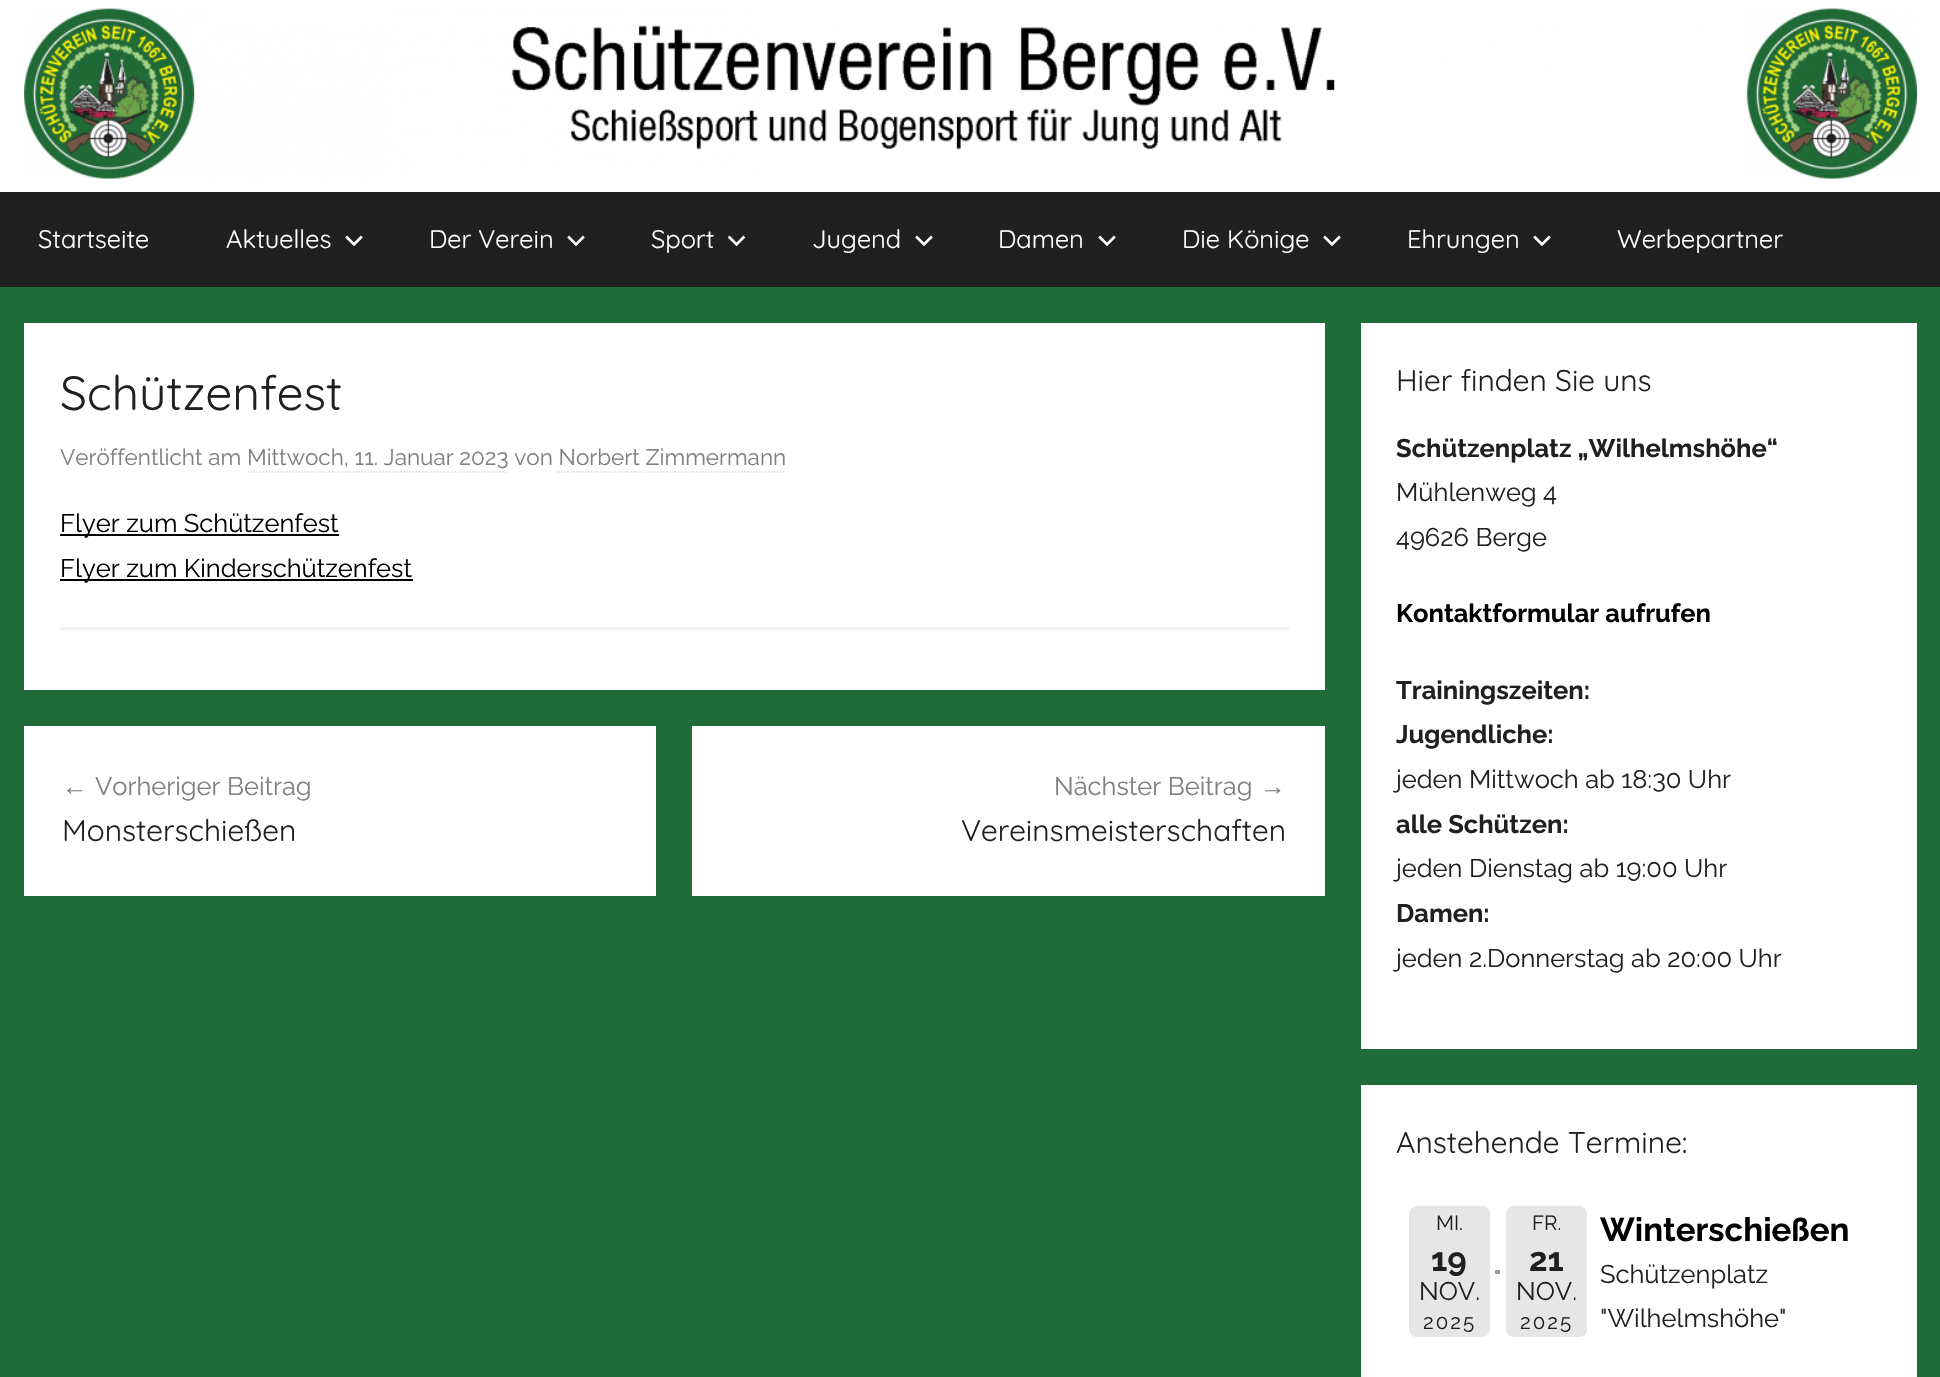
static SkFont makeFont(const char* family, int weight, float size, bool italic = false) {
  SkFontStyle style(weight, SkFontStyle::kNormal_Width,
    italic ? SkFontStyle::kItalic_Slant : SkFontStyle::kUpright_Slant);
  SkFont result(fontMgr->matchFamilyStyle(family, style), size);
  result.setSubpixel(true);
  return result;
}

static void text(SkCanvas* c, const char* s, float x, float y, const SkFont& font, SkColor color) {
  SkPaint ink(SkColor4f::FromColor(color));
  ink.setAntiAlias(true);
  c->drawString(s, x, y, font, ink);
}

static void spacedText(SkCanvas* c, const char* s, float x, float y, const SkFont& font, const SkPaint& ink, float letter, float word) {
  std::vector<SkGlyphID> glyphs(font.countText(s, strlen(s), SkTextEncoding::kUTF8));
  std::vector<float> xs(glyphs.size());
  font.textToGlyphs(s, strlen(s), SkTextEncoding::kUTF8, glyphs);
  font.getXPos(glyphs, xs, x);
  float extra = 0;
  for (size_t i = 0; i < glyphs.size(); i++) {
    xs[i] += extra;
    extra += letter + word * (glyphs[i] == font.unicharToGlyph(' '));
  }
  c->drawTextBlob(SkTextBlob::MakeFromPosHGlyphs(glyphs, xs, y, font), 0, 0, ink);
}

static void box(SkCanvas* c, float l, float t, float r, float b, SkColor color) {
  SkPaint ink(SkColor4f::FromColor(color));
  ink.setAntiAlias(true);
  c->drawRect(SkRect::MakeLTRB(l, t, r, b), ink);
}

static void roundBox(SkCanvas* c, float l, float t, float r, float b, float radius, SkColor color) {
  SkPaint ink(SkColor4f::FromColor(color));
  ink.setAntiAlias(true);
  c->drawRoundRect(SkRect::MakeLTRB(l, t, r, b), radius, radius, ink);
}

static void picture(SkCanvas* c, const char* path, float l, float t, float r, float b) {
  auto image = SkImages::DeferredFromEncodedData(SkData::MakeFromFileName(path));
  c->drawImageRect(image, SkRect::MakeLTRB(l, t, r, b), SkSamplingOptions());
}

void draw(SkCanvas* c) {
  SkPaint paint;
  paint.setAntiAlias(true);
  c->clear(0xff1f6b39);
  box(c, 0, 0, 1940, 192, 0xffffffff);
  picture(c, "img_01.png", 24, 7, 1917, 179);
  box(c, 0, 192, 1940, 287, 0xff202020);
  SkFont face1 = makeFont("Quicksand", 300, 25.5f);
  text(c, "Startseite", 38, 248, face1, 0xffffffff);
  text(c, "Aktuelles", 226, 248, face1, 0xffffffff);
  picture(c, "img_02.png", 345, 235, 363, 247);
  text(c, "Der Verein", 429, 248, face1, 0xffffffff);
  picture(c, "img_02.png", 567, 235, 585, 247);
  text(c, "Sport", 651, 248, face1, 0xffffffff);
  picture(c, "img_03.png", 727, 235, 746, 247);
  text(c, "Jugend", 812, 248, face1, 0xffffffff);
  picture(c, "img_02.png", 915, 235, 933, 247);
  text(c, "Damen", 998, 248, face1, 0xffffffff);
  picture(c, "img_02.png", 1098, 235, 1116, 247);
  text(c, "Die Könige", 1182, 248, face1, 0xffffffff);
  picture(c, "img_02.png", 1323, 235, 1341, 247);
  text(c, "Ehrungen", 1407, 248, face1, 0xffffffff);
  picture(c, "img_02.png", 1533, 235, 1551, 247);
  text(c, "Werbepartner", 1617, 248, face1, 0xffffffff);
  box(c, 24, 323, 1325, 690, 0xffffffff);
  SkFont face2 = makeFont("Quicksand", 300, 48);
  text(c, "Schützenfest", 60, 410, face2, 0xff202020);
  SkFont face3 = makeFont("Raleway", 100, 22.5f);
  text(c, "Veröffentlicht am Mittwoch, 11. Januar 2023 von Norbert Zimmermann", 60, 465, face3, 0xff808080);
  paint.setStyle(SkPaint::kStroke_Style);
  paint.setStrokeWidth(1.5f);
  paint.setColor(0xffd9d9d9);
  paint.setPathEffect(SkDashPathEffect::Make({{1.5f, 1.5f}}, 0));
  c->drawPath(SkPathBuilder().moveTo(247.5f, 472).lineTo(508.5f, 472).detach(), paint);
  paint.setPathEffect(nullptr);
  paint.setPathEffect(SkDashPathEffect::Make({{1.5f, 1.5f}}, 0));
  c->drawPath(SkPathBuilder().moveTo(558, 472).lineTo(786, 472).detach(), paint);
  paint.setPathEffect(nullptr);
  box(c, 60, 534, 339, 536, 0xff000000);
  SkFont face4 = makeFont("Raleway", 100, 25.5f);
  text(c, "Flyer zum Schützenfest", 60, 532, face4, 0xff000000);
  box(c, 60, 579, 413, 581, 0xff000000);
  text(c, "Flyer zum Kinderschützenfest", 60, 577, face4, 0xff000000);
  box(c, 60, 627, 1289, 630, 0xfff2f2f2);
  box(c, 24, 726, 656, 896, 0xffffffff);
  SkFont face5 = makeFont("Liberation Sans", 400, 25.5f);
  text(c, "←", 62, 795, face5, 0xff808080);
  text(c, "Vorheriger Beitrag", 95, 795, face4, 0xff808080);
  SkFont face6 = makeFont("Quicksand", 300, 30);
  text(c, "Monsterschießen", 62, 841, face6, 0xff202020);
  box(c, 692, 726, 1325, 896, 0xffffffff);
  text(c, "Nächster Beitrag", 1054, 795, face4, 0xff808080);
  text(c, "→", 1260, 795, face5, 0xff808080);
  text(c, "Vereinsmeisterschaften", 961, 841, face6, 0xff202020);
  box(c, 1361, 323, 1917, 1049, 0xffffffff);
  text(c, "Hier finden Sie uns", 1396, 391, face6, 0xff202020);
  SkFont face7 = makeFont("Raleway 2", 100, 25.5f);
  text(c, "Schützenplatz „Wilhelmshöhe“", 1396, 457, face7, 0xff202020);
  text(c, "Mühlenweg 4", 1396, 501, face4, 0xff202020);
  text(c, "49626 Berge", 1396, 546, face4, 0xff202020);
  text(c, "Kontaktformular aufrufen", 1396, 622, face7, 0xff000000);
  text(c, "Trainingszeiten:", 1396, 699, face7, 0xff202020);
  text(c, "Jugendliche:", 1396, 743, face7, 0xff202020);
  text(c, "jeden Mittwoch ab 18:30 Uhr", 1396, 788, face4, 0xff202020);
  text(c, "alle Schützen:", 1396, 833, face7, 0xff202020);
  text(c, "jeden Dienstag ab 19:00 Uhr", 1396, 877, face4, 0xff202020);
  text(c, "Damen:", 1396, 922, face7, 0xff202020);
  text(c, "jeden 2.Donnerstag ab 20:00 Uhr", 1396, 967, face4, 0xff202020);
  box(c, 1361, 1085, 1917, 1377, 0xffffffff);
  text(c, "Anstehende Termine:", 1396, 1153, face6, 0xff202020);
  box(c, 1495, 1270, 1500, 1274, 0xffa1948b);
  roundBox(c, 1409, 1206, 1490, 1337, 8, 0xffe6e6e6);
  SkFont face8 = makeFont("Raleway", 100, 20.5f);
  text(c, "MI.", 1436, 1230, face8, 0xff202020);
  SkFont face9 = makeFont("Raleway 2", 100, 33);
  text(c, "19", 1431, 1271, face9, 0xff202020);
  text(c, "NOV.", 1419, 1300, face4, 0xff202020);
  paint.setStyle(SkPaint::kFill_Style);
  paint.setColor(0xff202020);
  spacedText(c, "2025", 1423, 1329, face8, paint, 2, 0);
  roundBox(c, 1506, 1206, 1587, 1337, 8, 0xffe6e6e6);
  text(c, "FR.", 1532, 1230, face8, 0xff202020);
  text(c, "21", 1529, 1271, face9, 0xff202020);
  text(c, "NOV.", 1516, 1300, face4, 0xff202020);
  spacedText(c, "2025", 1520, 1329, face8, paint, 2, 0);
  text(c, "Winterschießen", 1600, 1241, face9, 0xff000000);
  text(c, "Schützenplatz", 1600, 1283, face4, 0xff202020);
  text(c, "\"Wilhelmshöhe\"", 1600, 1327, face4, 0xff202020);
}
